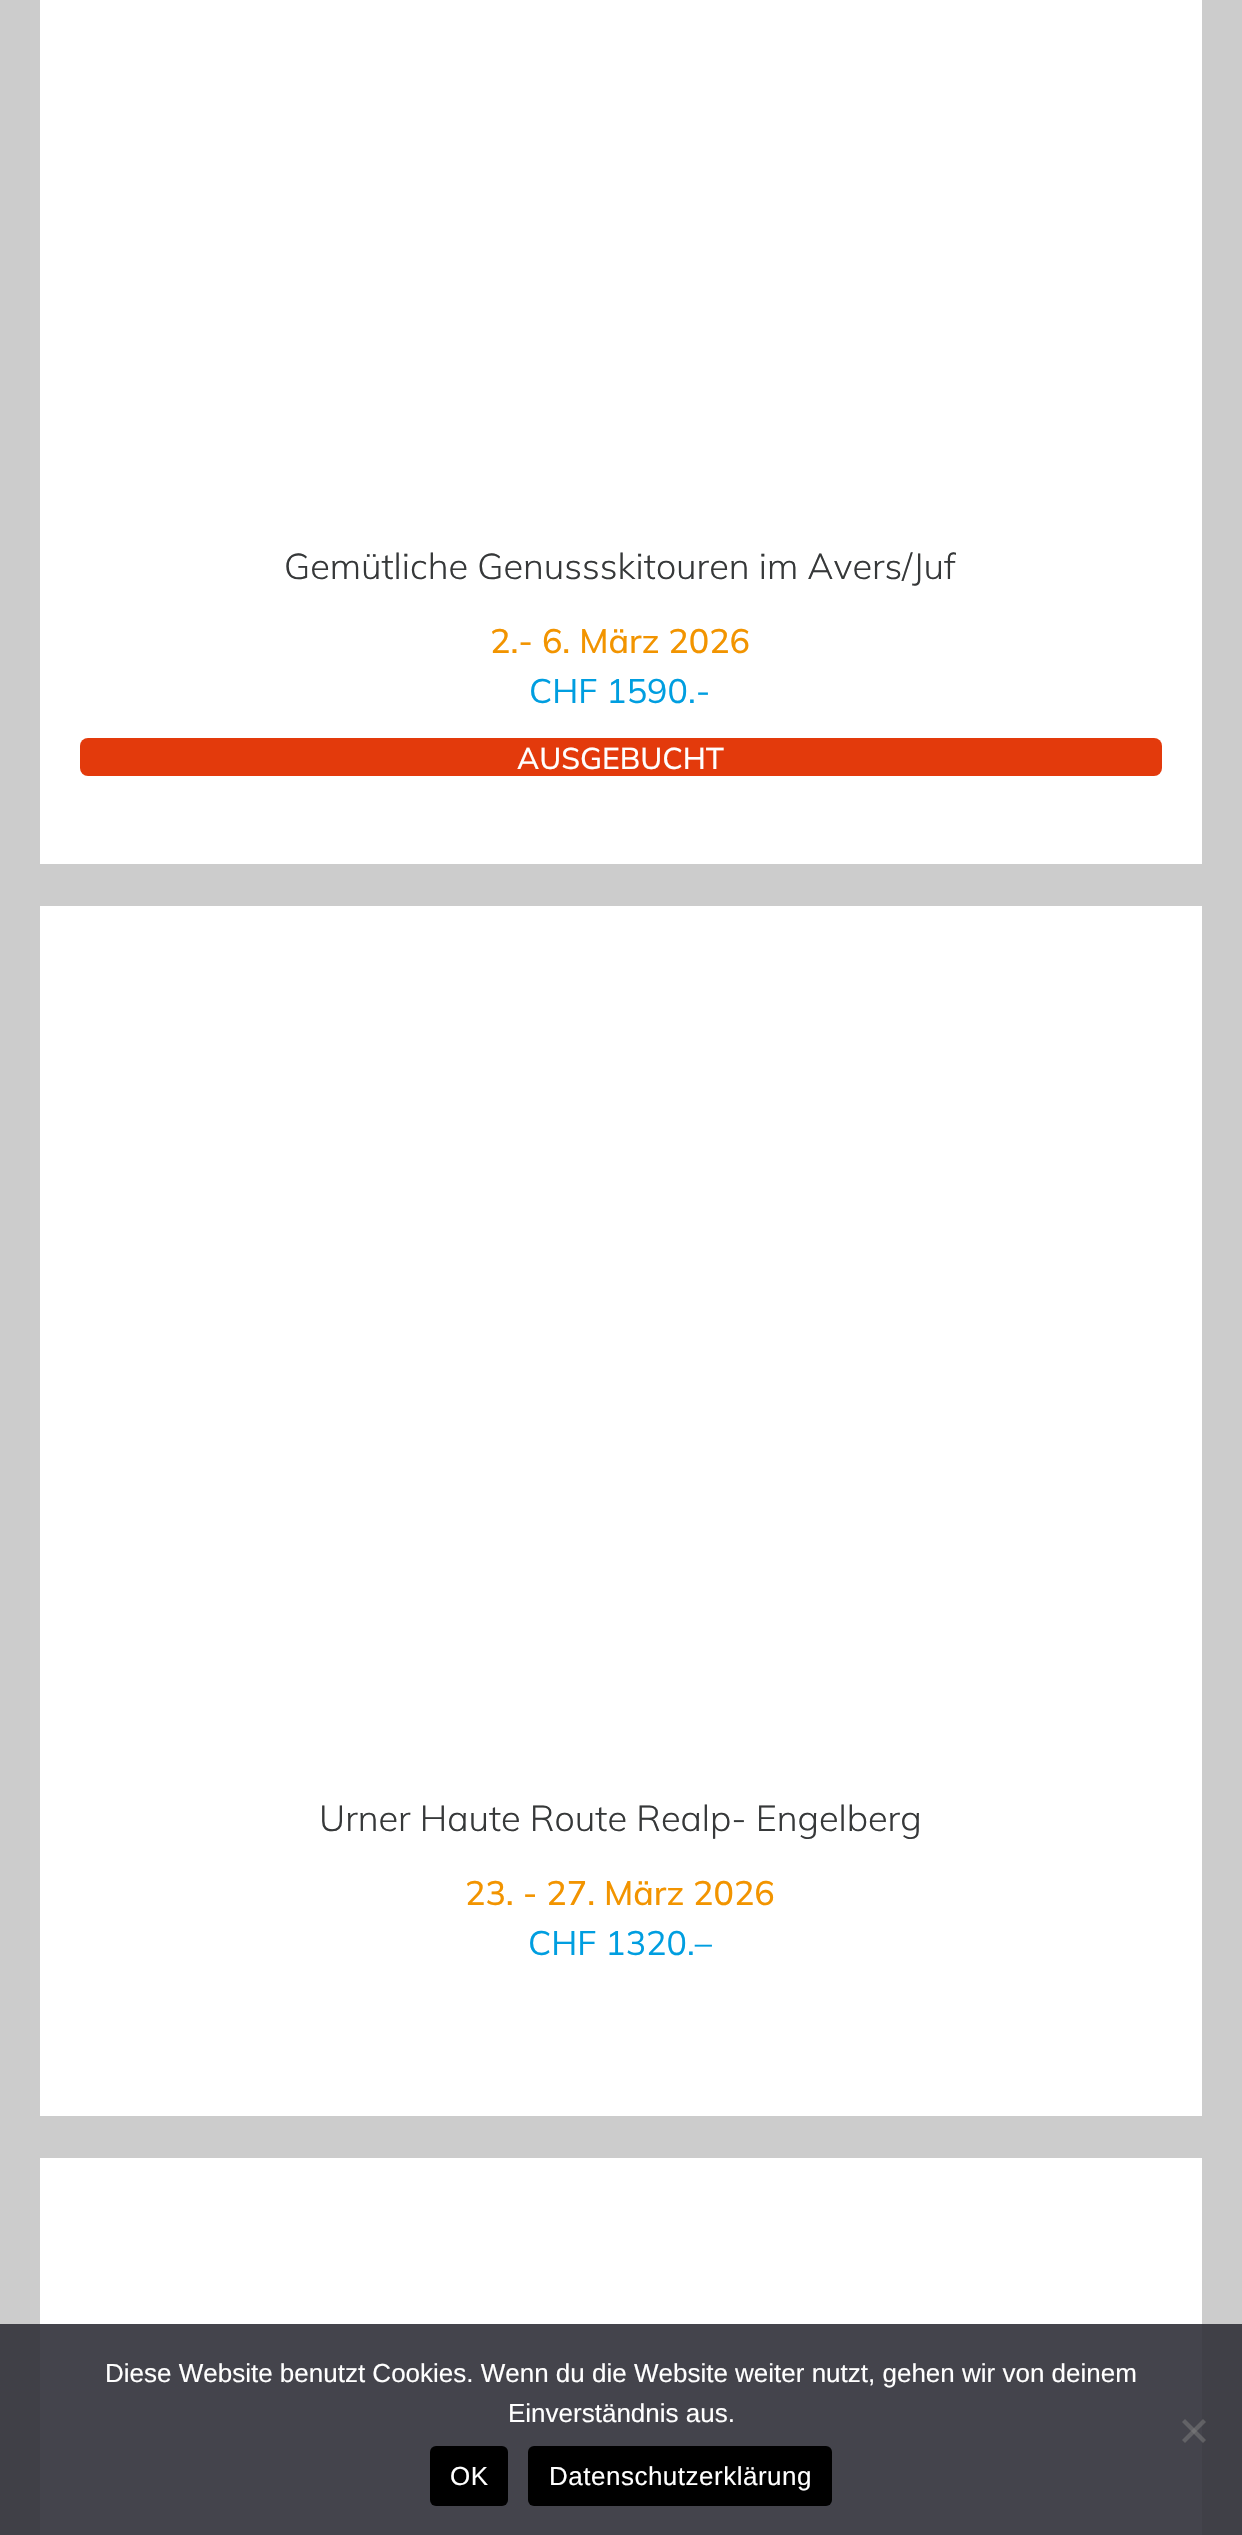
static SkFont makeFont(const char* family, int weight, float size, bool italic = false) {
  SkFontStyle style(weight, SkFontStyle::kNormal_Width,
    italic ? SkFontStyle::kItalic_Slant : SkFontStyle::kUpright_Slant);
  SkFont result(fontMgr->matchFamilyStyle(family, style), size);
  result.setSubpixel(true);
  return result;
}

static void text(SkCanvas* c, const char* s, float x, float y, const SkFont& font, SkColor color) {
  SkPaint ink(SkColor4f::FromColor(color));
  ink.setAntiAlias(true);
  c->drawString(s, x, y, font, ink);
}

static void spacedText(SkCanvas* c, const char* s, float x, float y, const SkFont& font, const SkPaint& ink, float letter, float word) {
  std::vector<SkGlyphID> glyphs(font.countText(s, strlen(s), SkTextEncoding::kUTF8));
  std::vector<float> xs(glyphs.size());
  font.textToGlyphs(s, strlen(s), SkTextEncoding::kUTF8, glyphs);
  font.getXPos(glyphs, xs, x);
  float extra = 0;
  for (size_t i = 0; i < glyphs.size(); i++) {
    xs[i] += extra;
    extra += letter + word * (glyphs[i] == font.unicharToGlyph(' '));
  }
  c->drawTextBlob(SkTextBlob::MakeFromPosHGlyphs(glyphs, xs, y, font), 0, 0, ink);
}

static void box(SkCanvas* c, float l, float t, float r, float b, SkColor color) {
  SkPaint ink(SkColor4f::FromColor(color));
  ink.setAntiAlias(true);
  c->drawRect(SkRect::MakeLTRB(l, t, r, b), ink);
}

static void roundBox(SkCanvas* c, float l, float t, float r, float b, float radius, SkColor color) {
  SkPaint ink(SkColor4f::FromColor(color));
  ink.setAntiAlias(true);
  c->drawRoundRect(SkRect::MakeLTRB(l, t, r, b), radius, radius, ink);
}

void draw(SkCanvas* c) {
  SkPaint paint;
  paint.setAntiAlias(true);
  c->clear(0xffcccccc);
  box(c, 0, 2324, 1242, 2535, 0xff404047);
  box(c, 40, 0, 1202, 864, 0xffffffff);
  SkFont face1 = makeFont("Mulish", 300, 36);
  text(c, "Gemütliche Genussskitouren im Avers/Juf", 284, 579, face1, 0xff363839);
  SkFont face2 = makeFont("Mulish", 200, 34);
  text(c, "2.- 6. März 2026", 490, 653, face2, 0xfff29400);
  SkFont face3 = makeFont("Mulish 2", 200, 34);
  text(c, "CHF 1590.-", 529, 703, face3, 0xff009ee0);
  roundBox(c, 80, 738, 1162, 776, 8, 0xffe33a0c);
  SkFont face4 = makeFont("Mulish", 200, 30);
  text(c, "AUSGEBUCHT", 517, 769, face4, 0xffffffff);
  box(c, 40, 906, 1202, 2116, 0xffffffff);
  text(c, "Urner Haute Route Realp- Engelberg", 319, 1831, face1, 0xff363839);
  text(c, "23. - 27. März 2026", 465, 1905, face2, 0xfff29400);
  text(c, "CHF 1320.–", 528, 1955, face3, 0xff009ee0);
  box(c, 40, 2158, 1202, 2324, 0xffffffff);
  box(c, 40, 2324, 1202, 2535, 0xff44444c);
  SkFont face5 = makeFont("Liberation Sans", 400, 26);
  text(c, "Diese Website benutzt Cookies. Wenn du die Website weiter nutzt, gehen wir von deinem", 105, 2382, face5, 0xffffffff);
  text(c, "Einverständnis aus.", 508, 2422, face5, 0xffffffff);
  paint.setColor(0x80808080);
  c->drawPath(SkPathBuilder().moveTo(1203, 2419).lineTo(1206, 2422).lineTo(1185, 2443).lineTo(1182, 2440).close().detach(), paint);
  c->drawPath(SkPathBuilder().moveTo(1182, 2422).lineTo(1185, 2419).lineTo(1206, 2440).lineTo(1203, 2443).close().detach(), paint);
  roundBox(c, 430, 2446, 508, 2506, 6, 0xff000000);
  paint.setColor(0xffffffff);
  spacedText(c, "OK", 450, 2485, face5, paint, 0.5f, 0);
  roundBox(c, 528, 2446, 832, 2506, 6, 0xff000000);
  spacedText(c, "Datenschutzerklärung", 549, 2485, face5, paint, 0.5f, 0);
}
